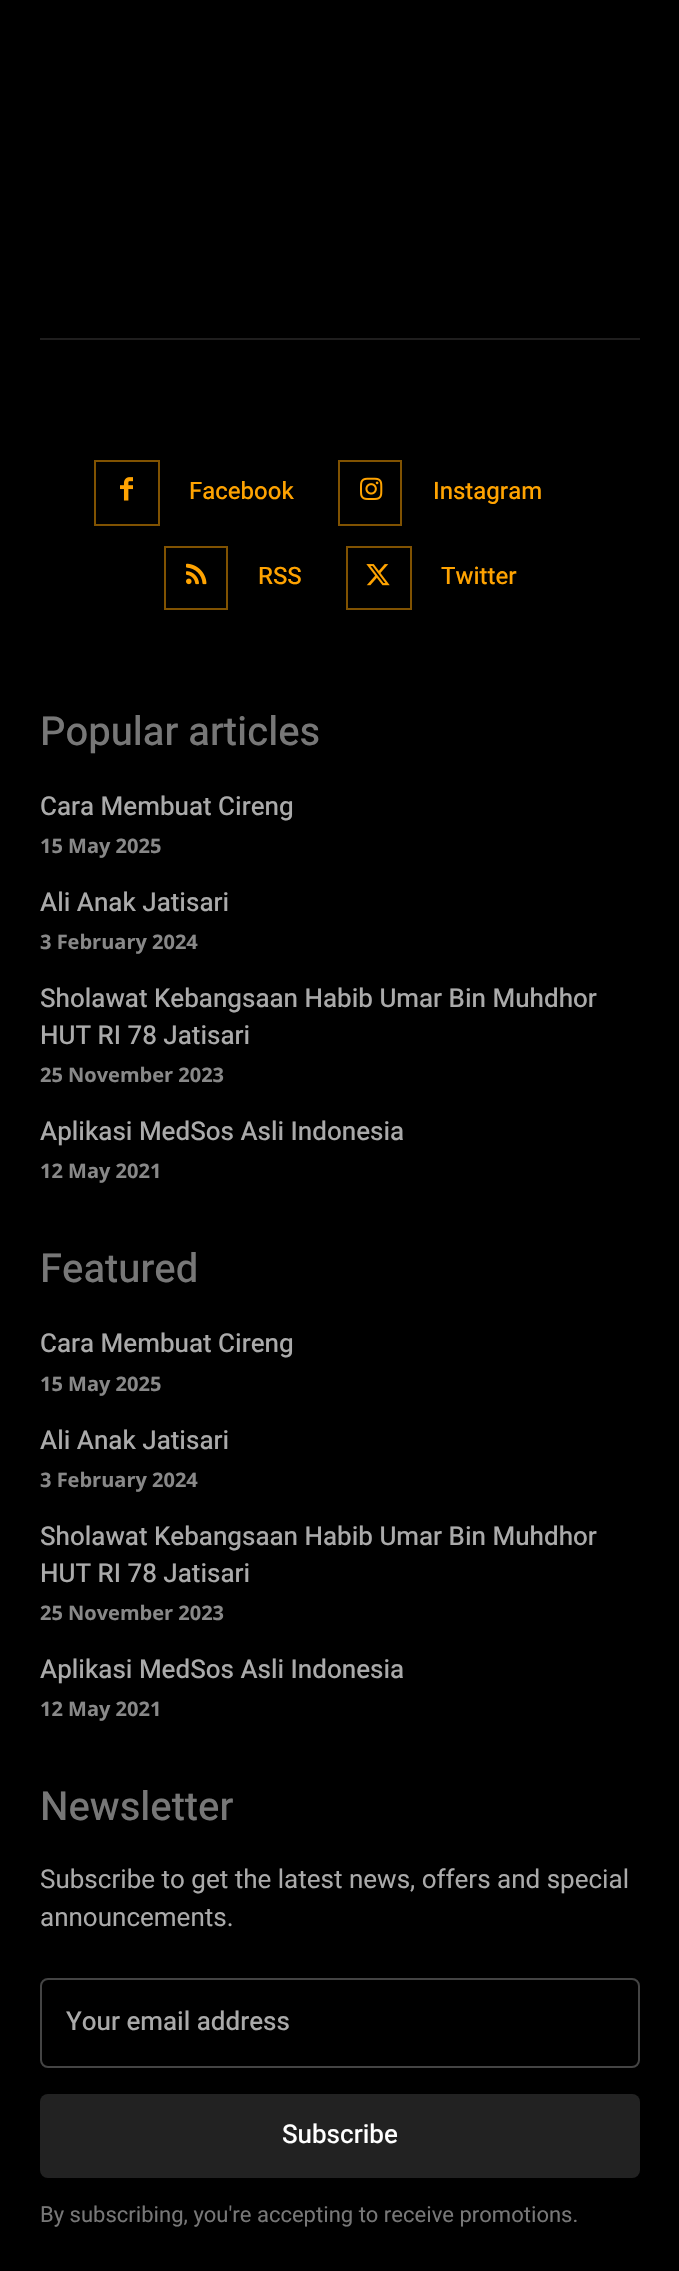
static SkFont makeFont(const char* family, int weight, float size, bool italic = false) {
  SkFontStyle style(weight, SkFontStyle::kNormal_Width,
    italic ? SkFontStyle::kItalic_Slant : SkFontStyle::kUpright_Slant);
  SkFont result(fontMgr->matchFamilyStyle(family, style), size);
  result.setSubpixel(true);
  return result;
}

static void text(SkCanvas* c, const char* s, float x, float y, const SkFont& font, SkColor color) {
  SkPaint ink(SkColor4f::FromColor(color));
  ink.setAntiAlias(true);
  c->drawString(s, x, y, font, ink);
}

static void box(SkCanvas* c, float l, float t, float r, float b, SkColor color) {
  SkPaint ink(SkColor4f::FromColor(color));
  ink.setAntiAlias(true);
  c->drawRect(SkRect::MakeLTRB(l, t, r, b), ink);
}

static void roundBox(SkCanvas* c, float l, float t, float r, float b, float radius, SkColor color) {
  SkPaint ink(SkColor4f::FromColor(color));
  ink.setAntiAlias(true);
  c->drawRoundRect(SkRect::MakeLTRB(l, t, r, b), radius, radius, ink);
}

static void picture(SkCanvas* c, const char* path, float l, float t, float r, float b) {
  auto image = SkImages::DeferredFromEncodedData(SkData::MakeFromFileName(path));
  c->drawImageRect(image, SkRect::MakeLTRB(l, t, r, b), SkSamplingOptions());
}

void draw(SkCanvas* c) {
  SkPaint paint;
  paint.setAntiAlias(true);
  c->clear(0xff000000);
  box(c, 40, 338, 640, 340, 0xff1f1e1e);
  paint.setStyle(SkPaint::kStroke_Style);
  paint.setStrokeWidth(2);
  paint.setColor(0xff805201);
  c->drawRect(SkRect::MakeLTRB(95, 461, 159, 525), paint);
  picture(c, "img_01.png", 120, 477, 133, 501);
  SkFont face1 = makeFont("Heebo", 500, 24);
  text(c, "Facebook", 189, 499, face1, 0xffffa301);
  c->drawRect(SkRect::MakeLTRB(339, 461, 401, 525), paint);
  picture(c, "img_02.png", 360, 477, 383, 500);
  text(c, "Instagram", 433, 499, face1, 0xffffa301);
  c->drawRect(SkRect::MakeLTRB(165, 547, 227, 609), paint);
  picture(c, "img_03.png", 186, 563, 207, 585);
  text(c, "RSS", 258, 584, face1, 0xffffa301);
  c->drawRect(SkRect::MakeLTRB(347, 547, 411, 609), paint);
  picture(c, "img_04.png", 366, 564, 390, 586);
  text(c, "Twitter", 441, 584, face1, 0xffffa301);
  SkFont face2 = makeFont("Heebo", 500, 40);
  text(c, "Popular articles", 40, 745, face2, 0xff777777);
  SkFont face3 = makeFont("Heebo", 500, 26);
  text(c, "Cara Membuat Cireng", 40, 815, face3, 0xffaaaaaa);
  SkFont face4 = makeFont("Open Sans", 700, 20);
  text(c, "15 May 2025", 40, 853, face4, 0xff888888);
  text(c, "Ali Anak Jatisari", 40, 911, face3, 0xffaaaaaa);
  text(c, "3 February 2024", 40, 949, face4, 0xff888888);
  text(c, "Sholawat Kebangsaan Habib Umar Bin Muhdhor", 40, 1007, face3, 0xffaaaaaa);
  text(c, "HUT RI 78 Jatisari", 40, 1044, face3, 0xffaaaaaa);
  text(c, "25 November 2023", 40, 1082, face4, 0xff888888);
  text(c, "Aplikasi MedSos Asli Indonesia", 40, 1140, face3, 0xffaaaaaa);
  text(c, "12 May 2021", 40, 1178, face4, 0xff888888);
  text(c, "Featured", 40, 1282, face2, 0xff777777);
  text(c, "Cara Membuat Cireng", 40, 1352, face3, 0xffaaaaaa);
  text(c, "15 May 2025", 40, 1391, face4, 0xff888888);
  text(c, "Ali Anak Jatisari", 40, 1449, face3, 0xffaaaaaa);
  text(c, "3 February 2024", 40, 1487, face4, 0xff888888);
  text(c, "Sholawat Kebangsaan Habib Umar Bin Muhdhor", 40, 1545, face3, 0xffaaaaaa);
  text(c, "HUT RI 78 Jatisari", 40, 1582, face3, 0xffaaaaaa);
  text(c, "25 November 2023", 40, 1620, face4, 0xff888888);
  text(c, "Aplikasi MedSos Asli Indonesia", 40, 1678, face3, 0xffaaaaaa);
  text(c, "12 May 2021", 40, 1716, face4, 0xff888888);
  text(c, "Newsletter", 40, 1820, face2, 0xff777777);
  SkFont face5 = makeFont("Heebo", 400, 26);
  text(c, "Subscribe to get the latest news, offers and special", 40, 1888, face5, 0xffaaaaaa);
  text(c, "announcements.", 40, 1926, face5, 0xffaaaaaa);
  paint.setColor(0xff444444);
  c->drawRoundRect(SkRect::MakeLTRB(41, 1979, 639, 2067), 7, 7, paint);
  text(c, "Your email address", 66, 2030, face3, 0xffaaaaaa);
  roundBox(c, 40, 2094, 640, 2178, 8, 0xff222222);
  text(c, "Subscribe", 282, 2143, face3, 0xffffffff);
  SkFont face6 = makeFont("Heebo", 400, 22);
  text(c, "By subscribing, you're accepting to receive promotions.", 40, 2222, face6, 0xff777777);
}
